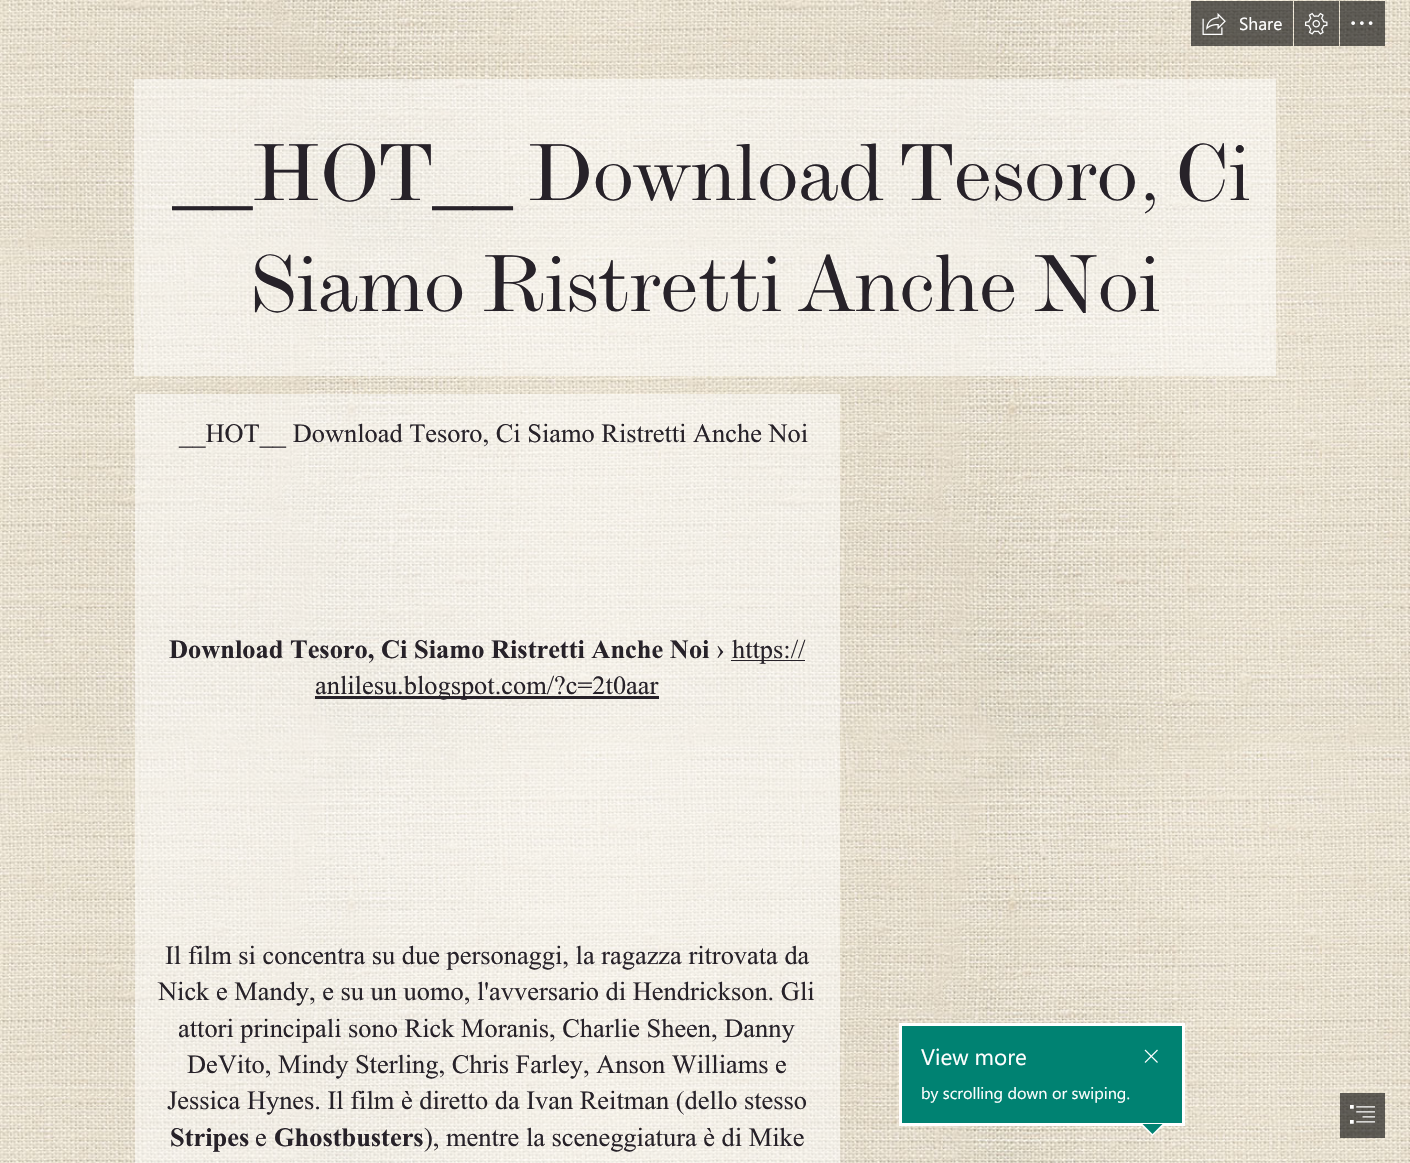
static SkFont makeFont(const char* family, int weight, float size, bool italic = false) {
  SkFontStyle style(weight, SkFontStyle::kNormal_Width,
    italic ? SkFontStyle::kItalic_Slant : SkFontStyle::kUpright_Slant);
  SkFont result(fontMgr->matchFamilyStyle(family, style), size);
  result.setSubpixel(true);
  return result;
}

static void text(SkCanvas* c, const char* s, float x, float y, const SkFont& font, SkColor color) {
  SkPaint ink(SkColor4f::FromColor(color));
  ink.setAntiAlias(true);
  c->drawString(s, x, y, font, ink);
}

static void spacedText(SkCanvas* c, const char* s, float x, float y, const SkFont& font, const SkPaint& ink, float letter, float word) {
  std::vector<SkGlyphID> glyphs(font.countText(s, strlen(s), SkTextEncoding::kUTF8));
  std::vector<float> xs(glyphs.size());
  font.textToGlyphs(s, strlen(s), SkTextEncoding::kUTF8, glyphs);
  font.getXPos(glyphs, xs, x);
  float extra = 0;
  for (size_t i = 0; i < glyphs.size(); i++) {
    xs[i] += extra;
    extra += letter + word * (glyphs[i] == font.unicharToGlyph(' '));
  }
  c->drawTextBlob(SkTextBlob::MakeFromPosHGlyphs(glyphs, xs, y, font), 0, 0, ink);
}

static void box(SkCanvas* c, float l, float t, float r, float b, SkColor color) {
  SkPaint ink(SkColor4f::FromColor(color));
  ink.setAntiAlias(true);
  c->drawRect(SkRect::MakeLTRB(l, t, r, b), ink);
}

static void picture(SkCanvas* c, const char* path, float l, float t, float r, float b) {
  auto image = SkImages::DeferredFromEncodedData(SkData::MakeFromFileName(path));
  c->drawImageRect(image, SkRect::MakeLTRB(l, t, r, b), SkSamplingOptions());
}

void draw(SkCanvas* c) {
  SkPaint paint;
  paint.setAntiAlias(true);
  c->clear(0xffffffff);
  picture(c, "img_04.png", 0, 0, 1410, 1163);
  box(c, 1191, 1, 1293, 46, 0x99000000);
  picture(c, "img_01.png", 1202, 13, 1226, 35);
  SkFont face1 = makeFont("Segoe UI", 400, 17.5f);
  text(c, "Share", 1239, 30, face1, 0xffffffff);
  box(c, 1294, 1, 1339, 46, 0x99000000);
  picture(c, "img_02.png", 1305, 12, 1328, 35);
  box(c, 1340, 1, 1385, 46, 0x99000000);
  picture(c, "img_03.png", 1351, 21, 1373, 25);
  box(c, 134, 79, 1276, 376, 0x80ffffff);
  SkFont face2 = makeFont("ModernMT", 400, 82.6f);
  paint.setColor(0xff272229);
  spacedText(c, "__HOT__ Download Tesoro, Ci", 172, 200, face2, paint, -1.7f, 0);
  spacedText(c, "Siamo Ristretti Anche Noi", 250, 311, face2, paint, -1.7f, 0);
  box(c, 135, 394, 840, 1163, 0x80ffffff);
  SkFont face3 = makeFont("Times New Roman", 400, 26.4f);
  text(c, "__HOT__ Download Tesoro, Ci Siamo Ristretti Anche Noi", 179, 442, face3, 0xff272229);
  SkFont face4 = makeFont("Times New Roman", 700, 26.4f);
  text(c, "Download Tesoro, Ci Siamo Ristretti Anche Noi", 169, 658, face4, 0xff272229);
  text(c, "›", 716, 658, face3, 0xff272229);
  box(c, 731, 660, 805, 661, 0xff272229);
  text(c, "https://", 732, 658, face3, 0xff272229);
  box(c, 315, 696, 659, 699, 0xff272229);
  text(c, "anlilesu.blogspot.com/?c=2t0aar", 315, 694, face3, 0xff272229);
  text(c, "Il film si concentra su due personaggi, la ragazza ritrovata da", 165, 964, face3, 0xff272229);
  text(c, "Nick e Mandy, e su un uomo, l'avversario di Hendrickson. Gli", 158, 1000, face3, 0xff272229);
  text(c, "attori principali sono Rick Moranis, Charlie Sheen, Danny", 178, 1037, face3, 0xff272229);
  text(c, "DeVito, Mindy Sterling, Chris Farley, Anson Williams e", 187, 1073, face3, 0xff272229);
  text(c, "Jessica Hynes. Il film è diretto da Ivan Reitman (dello stesso", 167, 1109, face3, 0xff272229);
  text(c, "Stripes", 170, 1146, face4, 0xff272229);
  text(c, "e", 255, 1146, face3, 0xff272229);
  text(c, "Ghostbusters", 274, 1146, face4, 0xff272229);
  text(c, "), mentre la sceneggiatura è di Mike", 424, 1146, face3, 0xff272229);
  paint.setColor(0xff008272);
  c->drawRect(SkRect::MakeLTRB(900.5f, 1024.5f, 1183.5f, 1124.5f), paint);
  paint.setStyle(SkPaint::kStroke_Style);
  paint.setStrokeWidth(3);
  paint.setColor(0xffffffff);
  c->drawRect(SkRect::MakeLTRB(900.5f, 1024.5f, 1183.5f, 1124.5f), paint);
  SkFont face5 = makeFont("Segoe UI", 400, 22.5f);
  text(c, "View more", 921, 1065, face5, 0xffffffff);
  SkFont face6 = makeFont("Segoe UI", 400, 16.25f);
  text(c, "by scrolling down or swiping.", 921, 1099, face6, 0xffffffff);
  picture(c, "img_05.png", 1144, 1049, 1158, 1063);
  paint.setStyle(SkPaint::kFill_Style);
  c->drawPath(SkPathBuilder().moveTo(1140, 1124).lineTo(1165, 1124).lineTo(1152.5f, 1136).close().detach(), paint);
  paint.setColor(0xff008272);
  c->drawPath(SkPathBuilder().moveTo(1142.5f, 1124).lineTo(1162.5f, 1124).lineTo(1152.5f, 1134).close().detach(), paint);
  box(c, 1340, 1093, 1385, 1138, 0x99000000);
  picture(c, "img_06.png", 1350, 1105, 1375, 1124);
}
